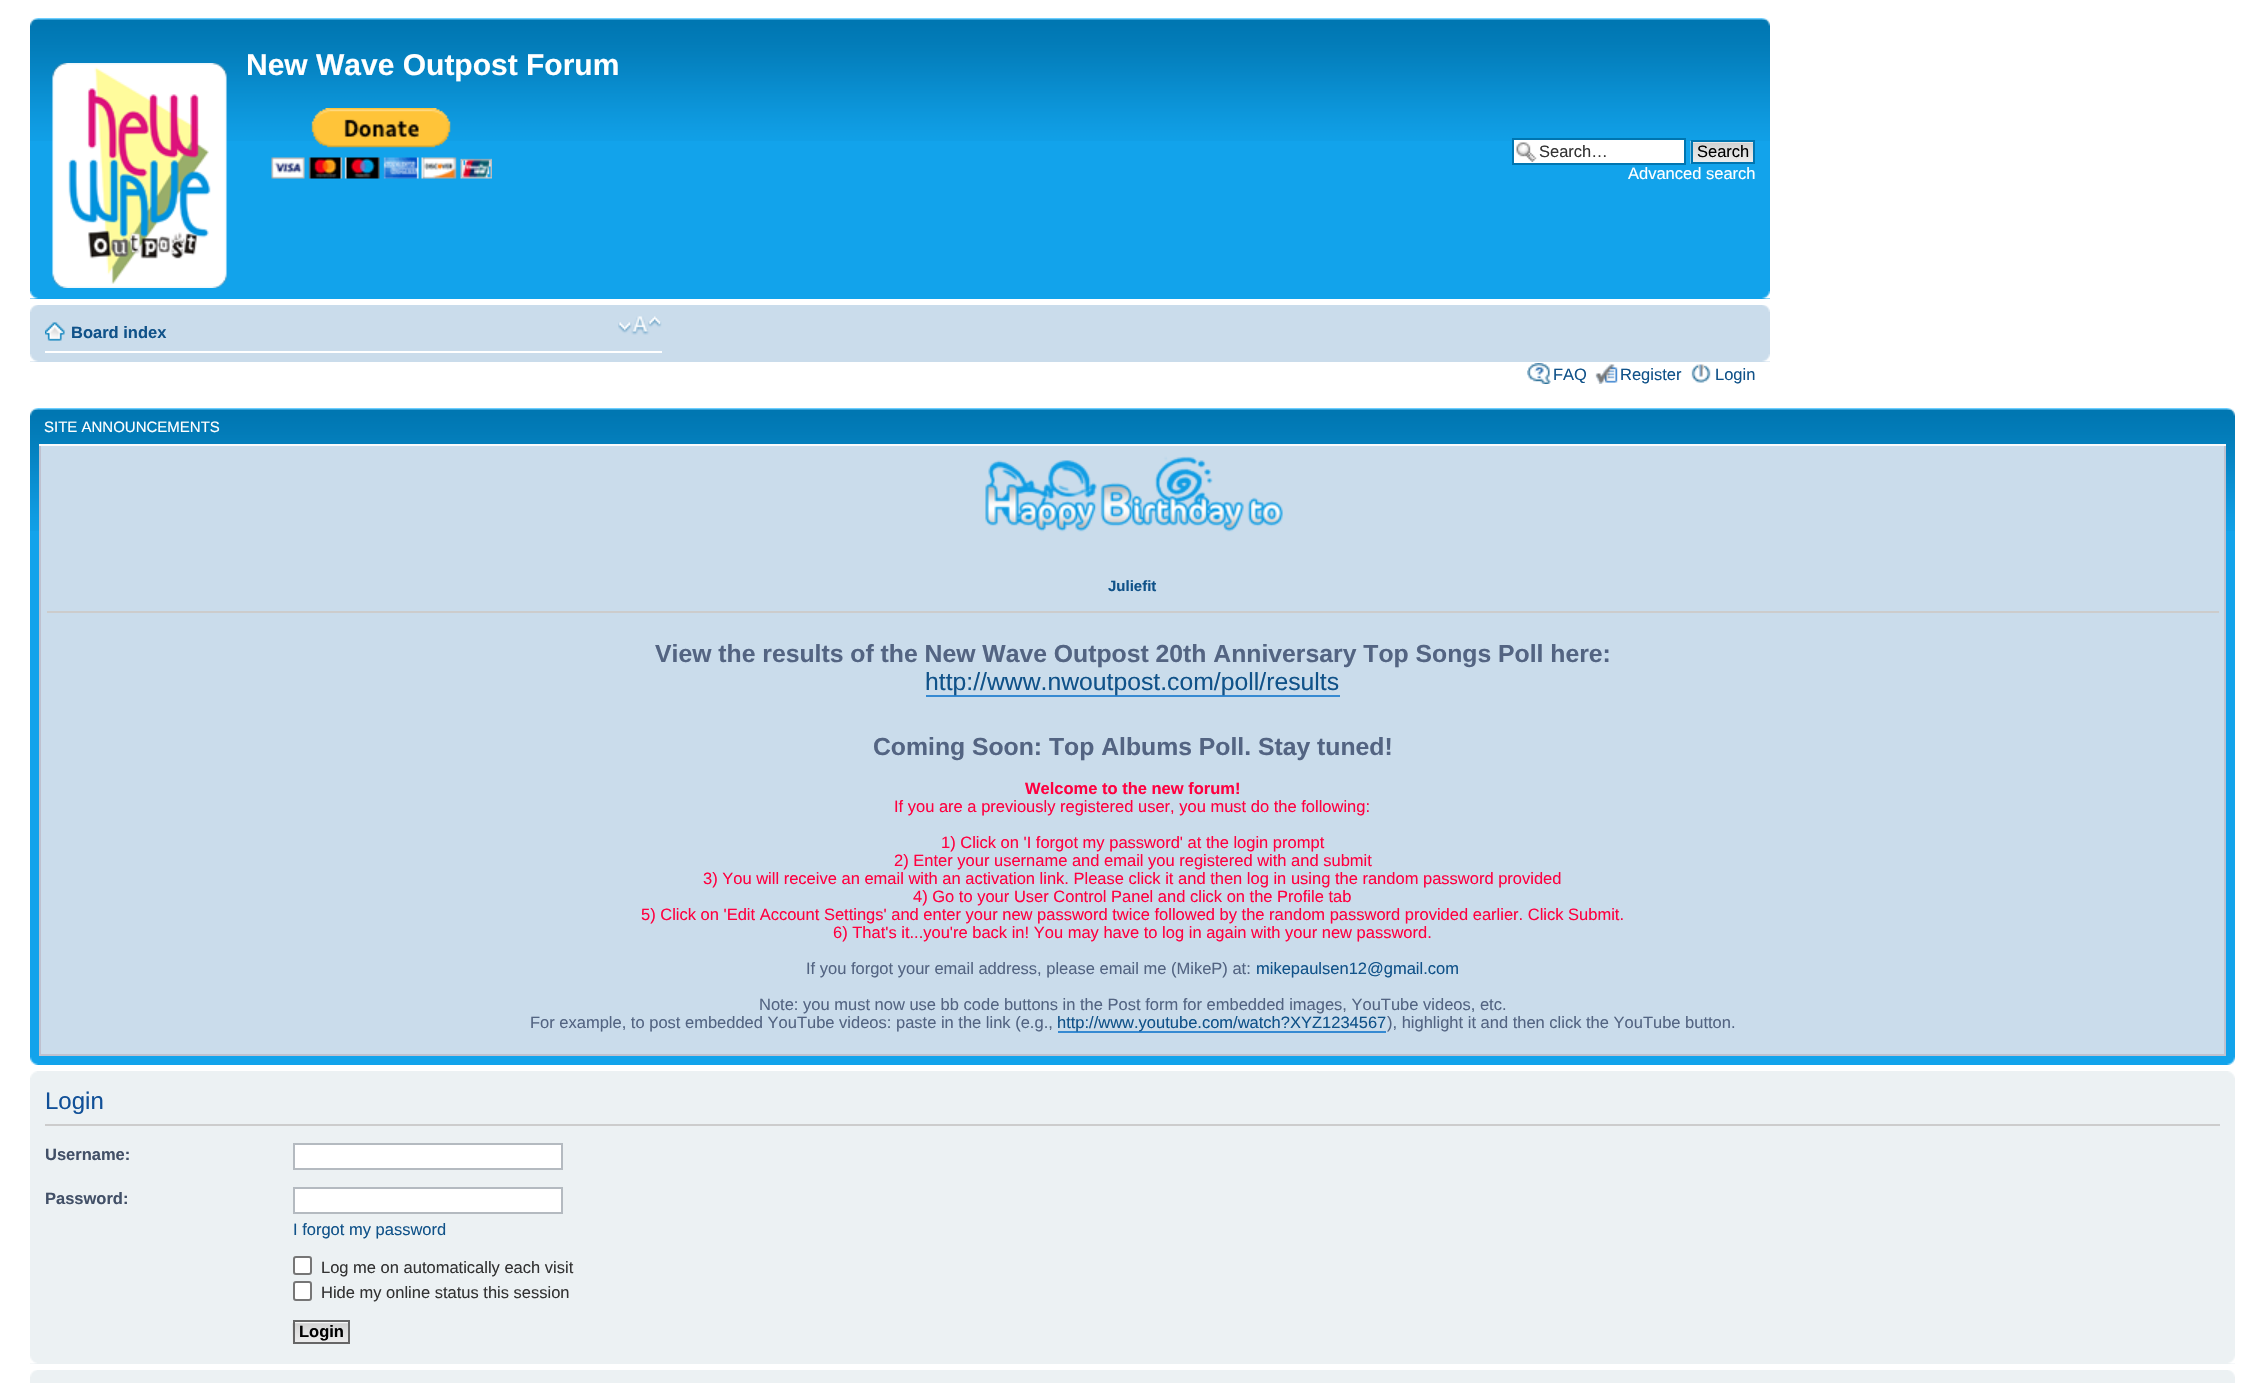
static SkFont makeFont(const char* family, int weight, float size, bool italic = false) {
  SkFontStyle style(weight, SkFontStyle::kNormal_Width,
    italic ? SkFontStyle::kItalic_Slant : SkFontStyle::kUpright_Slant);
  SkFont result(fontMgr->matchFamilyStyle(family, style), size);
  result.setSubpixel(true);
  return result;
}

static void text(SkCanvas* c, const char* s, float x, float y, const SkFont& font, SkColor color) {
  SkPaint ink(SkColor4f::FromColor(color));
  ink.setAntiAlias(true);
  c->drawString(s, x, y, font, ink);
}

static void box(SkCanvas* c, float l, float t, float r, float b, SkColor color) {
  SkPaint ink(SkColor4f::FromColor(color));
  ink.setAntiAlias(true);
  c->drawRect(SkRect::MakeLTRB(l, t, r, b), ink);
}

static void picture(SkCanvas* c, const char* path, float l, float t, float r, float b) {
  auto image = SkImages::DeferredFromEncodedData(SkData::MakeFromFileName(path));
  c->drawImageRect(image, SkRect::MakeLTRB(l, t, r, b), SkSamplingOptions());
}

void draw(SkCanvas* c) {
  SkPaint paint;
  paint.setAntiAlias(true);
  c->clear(0xffffffff);
  box(c, 30, 141, 1770, 299, 0xff12a3eb);
  picture(c, "img_01.png", 30, 18, 1770, 141);
  picture(c, "img_02.png", 30, 18, 38, 26);
  picture(c, "img_03.png", 1762, 18, 1770, 26);
  picture(c, "img_04.png", 52, 63, 227, 288);
  SkFont face1 = makeFont("Liberation Sans", 700, 30);
  text(c, "New Wave Outpost Forum", 246, 75, face1, 0xffffffff);
  picture(c, "img_05.png", 271, 108, 492, 179);
  box(c, 1514, 140, 1684, 163, 0xffffffff);
  picture(c, "img_06.png", 1516, 142, 1537, 162);
  paint.setStyle(SkPaint::kStroke_Style);
  paint.setStrokeWidth(2);
  paint.setColor(0xff0075b0);
  c->drawRect(SkRect::MakeLTRB(1513, 139, 1685, 164), paint);
  SkFont face2 = makeFont("Liberation Sans", 400, 16.5f);
  text(c, "Search…", 1539, 157, face2, 0xff333333);
  picture(c, "img_07.png", 1690, 141, 1753, 164);
  c->drawRect(SkRect::MakeLTRB(1692, 141, 1754, 163), paint);
  text(c, "Search", 1697, 157, face2, 0xff000000);
  text(c, "Advanced search", 1628, 179, face2, 0xffffffff);
  picture(c, "img_08.png", 30, 291, 38, 299);
  picture(c, "img_09.png", 1762, 291, 1770, 299);
  box(c, 30, 305, 1770, 362, 0xffcadceb);
  picture(c, "img_10.png", 30, 305, 38, 312);
  picture(c, "img_11.png", 1762, 305, 1770, 312);
  box(c, 45, 351, 662, 353, 0xffffffff);
  picture(c, "img_12.png", 45, 322, 65, 341);
  SkFont face3 = makeFont("Liberation Sans", 700, 16.5f);
  text(c, "Board index", 71, 338, face3, 0xff105289);
  picture(c, "img_13.png", 618, 316, 662, 335);
  picture(c, "img_14.png", 30, 354, 38, 362);
  picture(c, "img_15.png", 1762, 354, 1770, 362);
  picture(c, "img_16.png", 1527, 363, 1551, 384);
  text(c, "FAQ", 1553, 380, face2, 0xff105289);
  picture(c, "img_17.png", 1595, 364, 1618, 384);
  text(c, "Register", 1620, 380, face2, 0xff105289);
  picture(c, "img_18.png", 1691, 364, 1711, 383);
  text(c, "Login", 1715, 380, face2, 0xff105289);
  box(c, 30, 531, 2235, 1065, 0xff12a3eb);
  picture(c, "img_19.png", 30, 408, 2235, 531);
  picture(c, "img_20.png", 30, 408, 38, 416);
  picture(c, "img_21.png", 2227, 408, 2235, 416);
  SkFont face4 = makeFont("Liberation Sans", 400, 15);
  text(c, "SITE ANNOUNCEMENTS", 44, 432, face4, 0xffffffff);
  paint.setStyle(SkPaint::kFill_Style);
  paint.setColor(0xffcadceb);
  c->drawRect(SkRect::MakeLTRB(40, 445, 2225, 1055), paint);
  paint.setStyle(SkPaint::kStroke_Style);
  paint.setColor(0xffbfc1cf);
  c->drawRect(SkRect::MakeLTRB(40, 445, 2225, 1055), paint);
  box(c, 39, 444, 2226, 446, 0xfffafafa);
  picture(c, "img_22.png", 985, 456, 1283, 532);
  SkFont face5 = makeFont("Liberation Sans", 700, 15);
  text(c, "Juliefit", 1108, 591, face5, 0xff105289);
  box(c, 47, 611, 2219, 613, 0xffcccccc);
  SkFont face6 = makeFont("Liberation Sans", 700, 24.75f);
  text(c, "View the results of the New Wave Outpost 20th Anniversary Top Songs Poll here:", 655, 662, face6, 0xff536482);
  box(c, 926, 695, 1340, 697, 0xff368ad2);
  SkFont face7 = makeFont("Liberation Sans", 400, 24.75f);
  text(c, "http://www.nwoutpost.com/poll/results", 925, 690, face7, 0xff105289);
  text(c, "Coming Soon: Top Albums Poll. Stay tuned!", 873, 755, face6, 0xff536482);
  text(c, "Welcome to the new forum!", 1025, 794, face3, 0xffff0040);
  text(c, "If you are a previously registered user, you must do the following:", 894, 812, face2, 0xffff0040);
  text(c, "1) Click on 'I forgot my password' at the login prompt", 941, 848, face2, 0xffff0040);
  text(c, "2) Enter your username and email you registered with and submit", 894, 866, face2, 0xffff0040);
  text(c, "3) You will receive an email with an activation link. Please click it and then log in using the random password provided", 703, 884, face2, 0xffff0040);
  text(c, "4) Go to your User Control Panel and click on the Profile tab", 913, 902, face2, 0xffff0040);
  text(c, "5) Click on 'Edit Account Settings' and enter your new password twice followed by the random password provided earlier. Click Submit.", 641, 920, face2, 0xffff0040);
  text(c, "6) That's it...you're back in! You may have to log in again with your new password.", 833, 938, face2, 0xffff0040);
  text(c, "If you forgot your email address, please email me (MikeP) at:", 806, 974, face2, 0xff536482);
  text(c, "mikepaulsen12@gmail.com", 1256, 974, face2, 0xff105289);
  text(c, "Note: you must now use bb code buttons in the Post form for embedded images, YouTube videos, etc.", 759, 1010, face2, 0xff536482);
  text(c, "For example, to post embedded YouTube videos: paste in the link (e.g.,", 530, 1028, face2, 0xff536482);
  box(c, 1058, 1031, 1386, 1033, 0xff368ad2);
  text(c, "http://www.youtube.com/watch?XYZ1234567", 1057, 1028, face2, 0xff105289);
  text(c, "), highlight it and then click the YouTube button.", 1387, 1028, face2, 0xff536482);
  picture(c, "img_23.png", 30, 1057, 38, 1065);
  picture(c, "img_24.png", 2227, 1057, 2235, 1065);
  box(c, 30, 1071, 2235, 1364, 0xffecf1f3);
  picture(c, "img_25.png", 30, 1071, 37, 1078);
  picture(c, "img_26.png", 2228, 1071, 2235, 1078);
  box(c, 45, 1124, 2220, 1126, 0xffcccccc);
  SkFont face8 = makeFont("Liberation Sans", 400, 24);
  text(c, "Login", 45, 1109, face8, 0xff115098);
  text(c, "Username:", 45, 1160, face3, 0xff425067);
  paint.setStyle(SkPaint::kFill_Style);
  paint.setColor(0xffffffff);
  c->drawRect(SkRect::MakeLTRB(294, 1144, 562, 1169), paint);
  paint.setStyle(SkPaint::kStroke_Style);
  paint.setColor(0xffb4bac0);
  c->drawRect(SkRect::MakeLTRB(294, 1144, 562, 1169), paint);
  text(c, "Password:", 45, 1204, face3, 0xff425067);
  paint.setStyle(SkPaint::kFill_Style);
  paint.setColor(0xffffffff);
  c->drawRect(SkRect::MakeLTRB(294, 1188, 562, 1213), paint);
  paint.setStyle(SkPaint::kStroke_Style);
  paint.setColor(0xffb4bac0);
  c->drawRect(SkRect::MakeLTRB(294, 1188, 562, 1213), paint);
  text(c, "I forgot my password", 293, 1235, face2, 0xff105289);
  paint.setStyle(SkPaint::kFill_Style);
  paint.setColor(0xffffffff);
  c->drawRoundRect(SkRect::MakeLTRB(294, 1257, 311, 1274), 2, 2, paint);
  paint.setStyle(SkPaint::kStroke_Style);
  paint.setColor(0xff767676);
  c->drawRoundRect(SkRect::MakeLTRB(294, 1257, 311, 1274), 2, 2, paint);
  text(c, "Log me on automatically each visit", 321, 1273, face2, 0xff333333);
  paint.setStyle(SkPaint::kFill_Style);
  paint.setColor(0xffffffff);
  c->drawRoundRect(SkRect::MakeLTRB(294, 1282, 311, 1300), 2, 2, paint);
  paint.setStyle(SkPaint::kStroke_Style);
  paint.setColor(0xff767676);
  c->drawRoundRect(SkRect::MakeLTRB(294, 1282, 311, 1300), 2, 2, paint);
  text(c, "Hide my online status this session", 321, 1298, face2, 0xff333333);
  picture(c, "img_27.png", 292, 1321, 348, 1344);
  paint.setColor(0xff666666);
  c->drawRect(SkRect::MakeLTRB(294, 1321, 349, 1343), paint);
  text(c, "Login", 299, 1337, face3, 0xff000000);
  picture(c, "img_28.png", 30, 1356, 37, 1364);
  picture(c, "img_29.png", 2228, 1356, 2235, 1364);
  box(c, 30, 1370, 2235, 1383, 0xffecf1f3);
  picture(c, "img_30.png", 30, 1370, 37, 1377);
  picture(c, "img_31.png", 2228, 1370, 2235, 1377);
}
